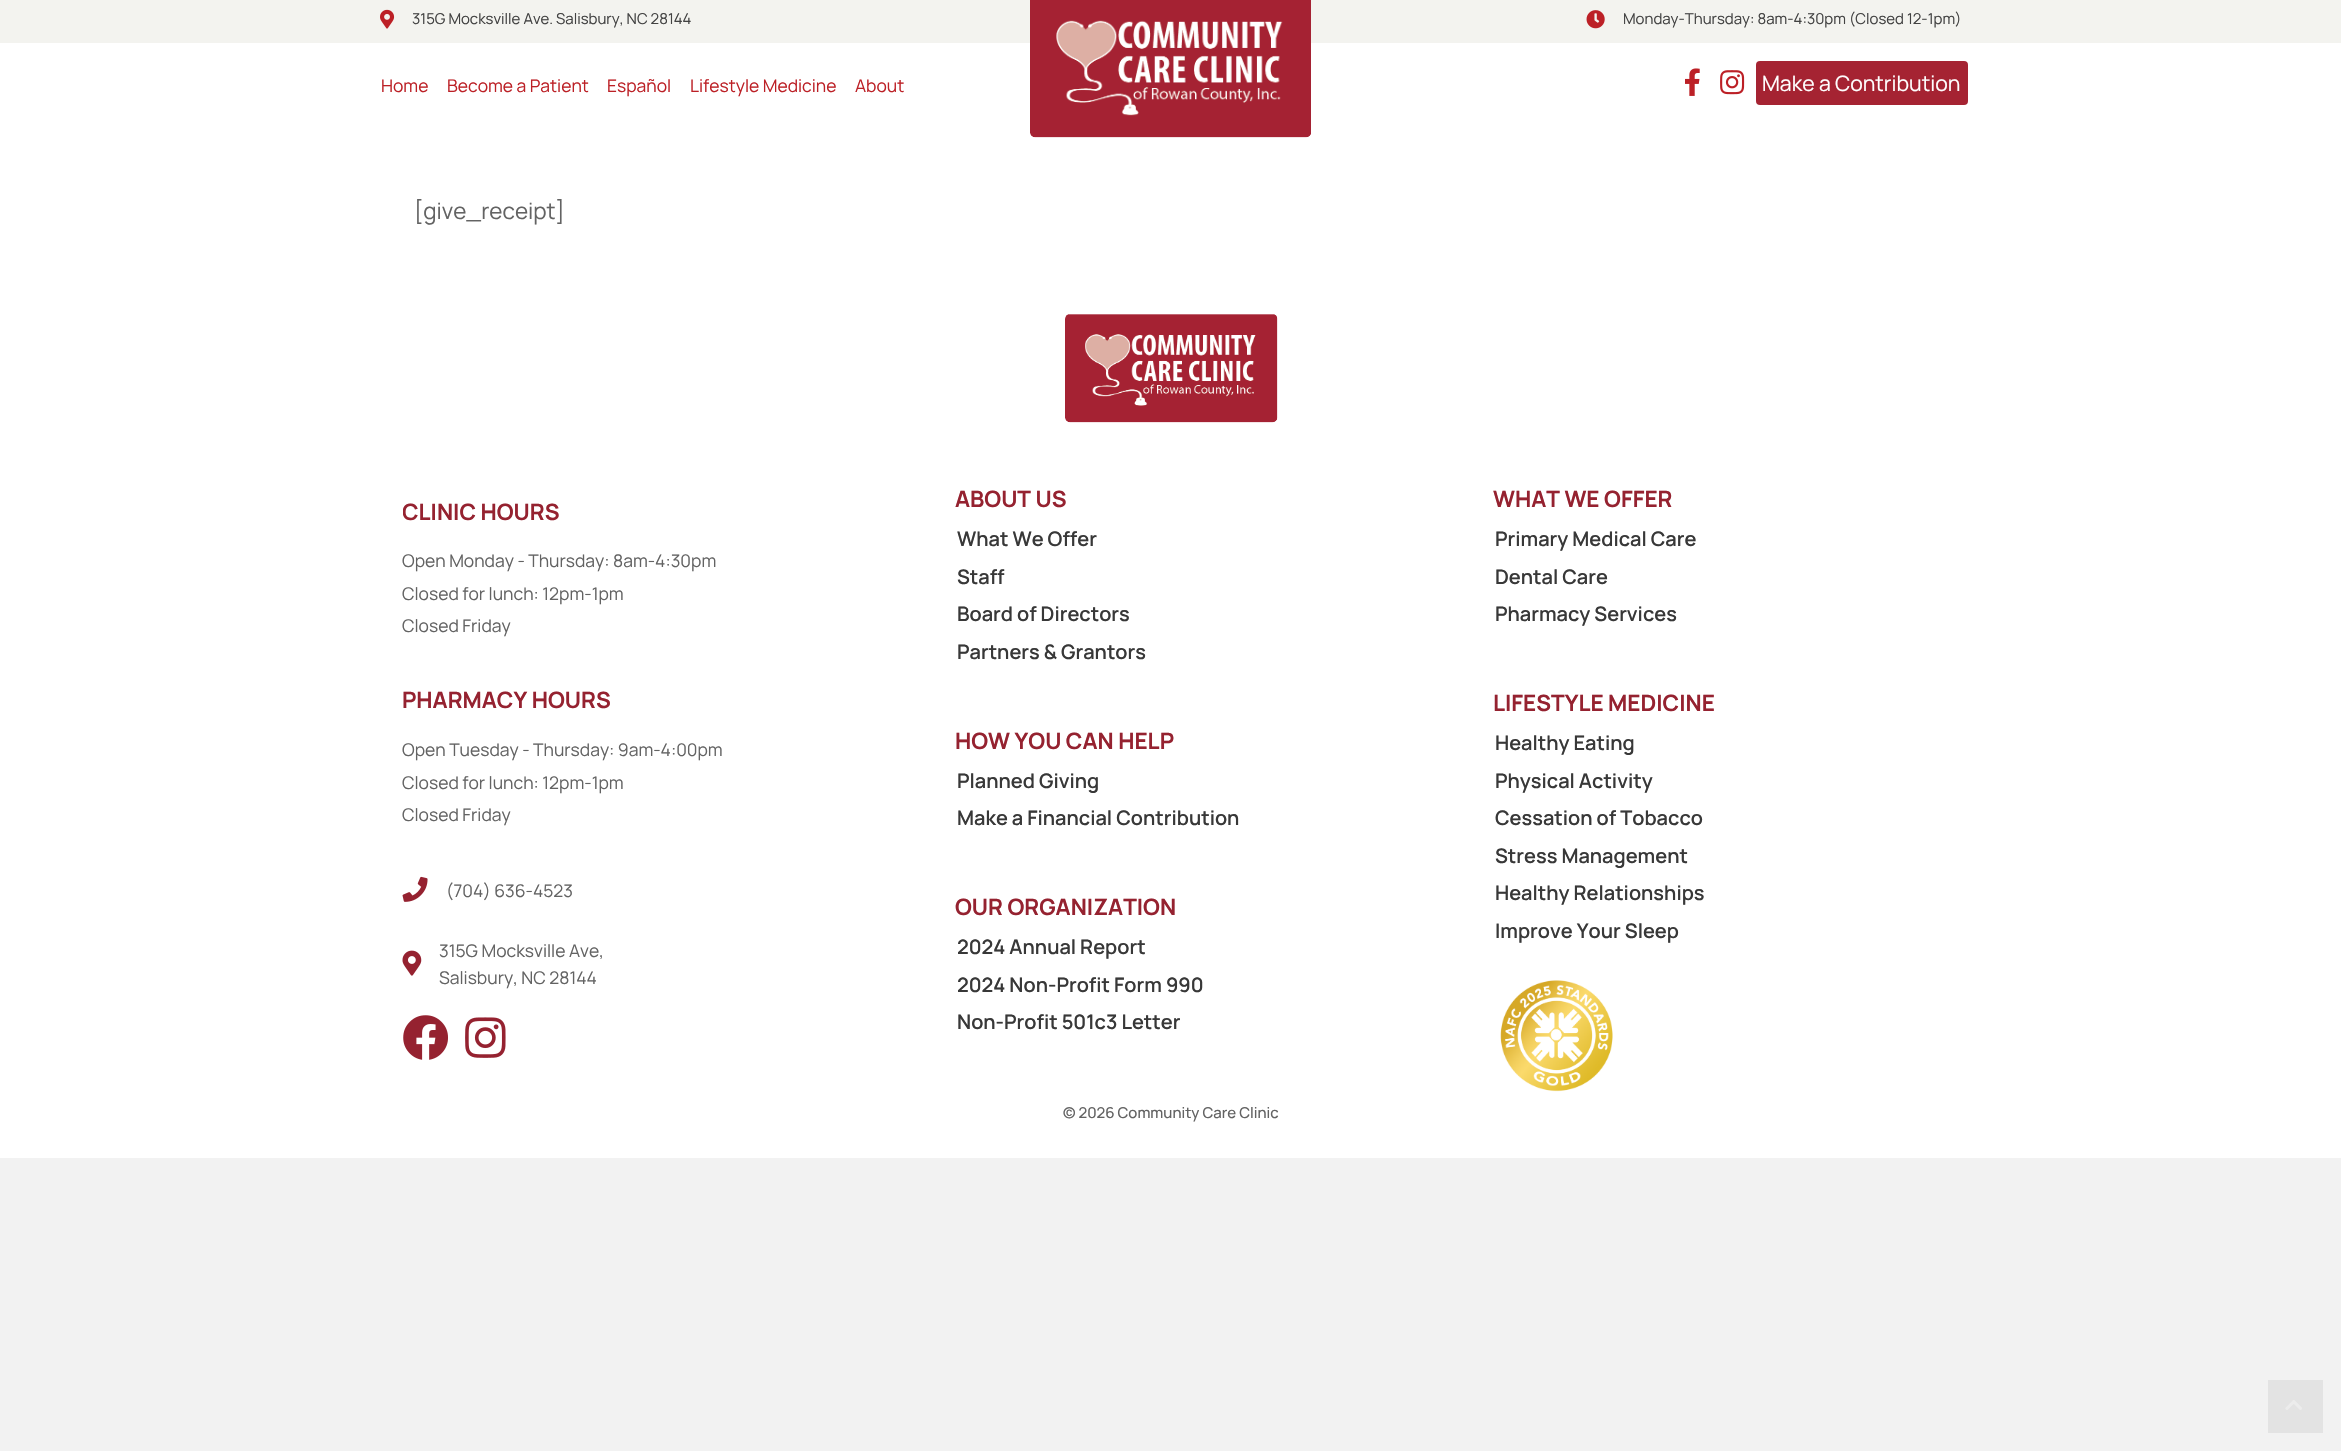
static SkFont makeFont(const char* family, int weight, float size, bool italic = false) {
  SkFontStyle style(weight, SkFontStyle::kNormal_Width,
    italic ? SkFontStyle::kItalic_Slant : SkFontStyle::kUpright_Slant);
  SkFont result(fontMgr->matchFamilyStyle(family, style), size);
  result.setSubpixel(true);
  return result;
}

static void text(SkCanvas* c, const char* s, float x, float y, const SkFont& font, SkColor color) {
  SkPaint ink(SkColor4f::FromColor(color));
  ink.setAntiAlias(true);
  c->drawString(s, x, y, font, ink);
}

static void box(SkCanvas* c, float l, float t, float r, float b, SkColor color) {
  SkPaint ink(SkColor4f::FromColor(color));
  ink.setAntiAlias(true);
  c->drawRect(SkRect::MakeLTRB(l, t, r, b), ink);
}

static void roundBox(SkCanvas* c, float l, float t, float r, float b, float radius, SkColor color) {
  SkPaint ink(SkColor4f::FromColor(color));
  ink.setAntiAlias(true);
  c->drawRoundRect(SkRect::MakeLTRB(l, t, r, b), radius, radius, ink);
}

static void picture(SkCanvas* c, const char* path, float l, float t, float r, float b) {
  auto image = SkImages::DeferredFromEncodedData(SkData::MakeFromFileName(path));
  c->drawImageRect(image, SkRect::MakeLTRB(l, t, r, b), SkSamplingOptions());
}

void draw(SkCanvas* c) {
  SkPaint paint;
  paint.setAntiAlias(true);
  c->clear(0xfff2f2f2);
  box(c, 0, 0, 2341, 43, 0xfff3f3ef);
  picture(c, "img_01.png", 380, 9, 395, 29);
  SkFont face1 = makeFont("Manrope", 400, 15);
  text(c, "315G Mocksville Ave. Salisbury, NC 28144", 412, 24, face1, 0xff424242);
  picture(c, "img_02.png", 1586, 10, 1605, 29);
  text(c, "Monday-Thursday: 8am-4:30pm (Closed 12-1pm)", 1623, 24, face1, 0xff424242);
  box(c, 0, 43, 2341, 1158, 0xffffffff);
  SkFont face2 = makeFont("Manrope", 400, 17.5f);
  text(c, "Home", 381, 92, face2, 0xffbc2026);
  text(c, "Become a Patient", 447, 92, face2, 0xffbc2026);
  text(c, "Español", 607, 92, face2, 0xffbc2026);
  text(c, "Lifestyle Medicine", 690, 92, face2, 0xffbc2026);
  text(c, "About", 855, 92, face2, 0xffbc2026);
  picture(c, "img_03.png", 1030, 0, 1311, 138);
  picture(c, "img_04.png", 1685, 68, 1700, 96);
  picture(c, "img_05.png", 1720, 70, 1745, 95);
  roundBox(c, 1756, 61, 1968, 105, 4, 0xffa52332);
  SkFont face3 = makeFont("Manrope", 400, 21.25f);
  text(c, "Make a Contribution", 1762, 91, face3, 0xffffffff);
  SkFont face4 = makeFont("Manrope", 400, 22.5f);
  text(c, "[give_receipt]", 414, 219, face4, 0xff636363);
  picture(c, "img_06.png", 1065, 314, 1278, 423);
  c->save();
  c->clipRect(SkRect::MakeLTRB(403, 479, 955, 545));
  SkFont face5 = makeFont("Manrope", 700, 22.5f);
  text(c, "CLINIC HOURS", 402, 520, face5, 0xff952230);
  c->restore();
  text(c, "Open Monday - Thursday: 8am-4:30pm", 402, 567, face2, 0xff636363);
  text(c, "Closed for lunch: 12pm-1pm", 402, 600, face2, 0xff636363);
  text(c, "Closed Friday", 402, 632, face2, 0xff636363);
  text(c, "PHARMACY HOURS", 402, 708, face5, 0xff952230);
  text(c, "Open Tuesday - Thursday: 9am-4:00pm", 402, 756, face2, 0xff636363);
  text(c, "Closed for lunch: 12pm-1pm", 402, 789, face2, 0xff636363);
  text(c, "Closed Friday", 402, 821, face2, 0xff636363);
  picture(c, "img_07.png", 402, 876, 428, 902);
  text(c, "(704) 636-4523", 446, 897, face2, 0xff636363);
  picture(c, "img_08.png", 402, 950, 422, 976);
  text(c, "315G Mocksville Ave,", 439, 957, face2, 0xff636363);
  text(c, "Salisbury, NC 28144", 439, 984, face2, 0xff636363);
  picture(c, "img_09.png", 403, 1015, 448, 1060);
  picture(c, "img_10.png", 465, 1017, 506, 1058);
  text(c, "ABOUT US", 955, 507, face5, 0xff952230);
  SkFont face6 = makeFont("Manrope", 600, 20);
  text(c, "What We Offer", 957, 546, face6, 0xff383838);
  text(c, "Staff", 957, 584, face6, 0xff383838);
  text(c, "Board of Directors", 957, 621, face6, 0xff383838);
  text(c, "Partners & Grantors", 957, 659, face6, 0xff383838);
  text(c, "HOW YOU CAN HELP", 955, 749, face5, 0xff952230);
  text(c, "Planned Giving", 957, 788, face6, 0xff383838);
  text(c, "Make a Financial Contribution", 957, 825, face6, 0xff383838);
  text(c, "OUR ORGANIZATION", 955, 915, face5, 0xff952230);
  text(c, "2024 Annual Report", 957, 954, face6, 0xff383838);
  text(c, "2024 Non-Profit Form 990", 957, 992, face6, 0xff383838);
  text(c, "Non-Profit 501c3 Letter", 957, 1029, face6, 0xff383838);
  text(c, "WHAT WE OFFER", 1493, 507, face5, 0xff952230);
  text(c, "Primary Medical Care", 1495, 546, face6, 0xff383838);
  text(c, "Dental Care", 1495, 584, face6, 0xff383838);
  text(c, "Pharmacy Services", 1495, 621, face6, 0xff383838);
  text(c, "LIFESTYLE MEDICINE", 1493, 711, face5, 0xff952230);
  text(c, "Healthy Eating", 1495, 750, face6, 0xff383838);
  text(c, "Physical Activity", 1495, 788, face6, 0xff383838);
  text(c, "Cessation of Tobacco", 1495, 825, face6, 0xff383838);
  text(c, "Stress Management", 1495, 863, face6, 0xff383838);
  text(c, "Healthy Relationships", 1495, 900, face6, 0xff383838);
  text(c, "Improve Your Sleep", 1495, 938, face6, 0xff383838);
  picture(c, "img_11.png", 1500, 980, 1613, 1092);
  SkFont face7 = makeFont("Manrope", 500, 15);
  text(c, "© 2026 Community Care Clinic", 1063, 1118, face7, 0xff636363);
  box(c, 2268, 1380, 2323, 1433, 0xffe3e3e3);
  picture(c, "img_12.png", 2285, 1400, 2302, 1410);
}
